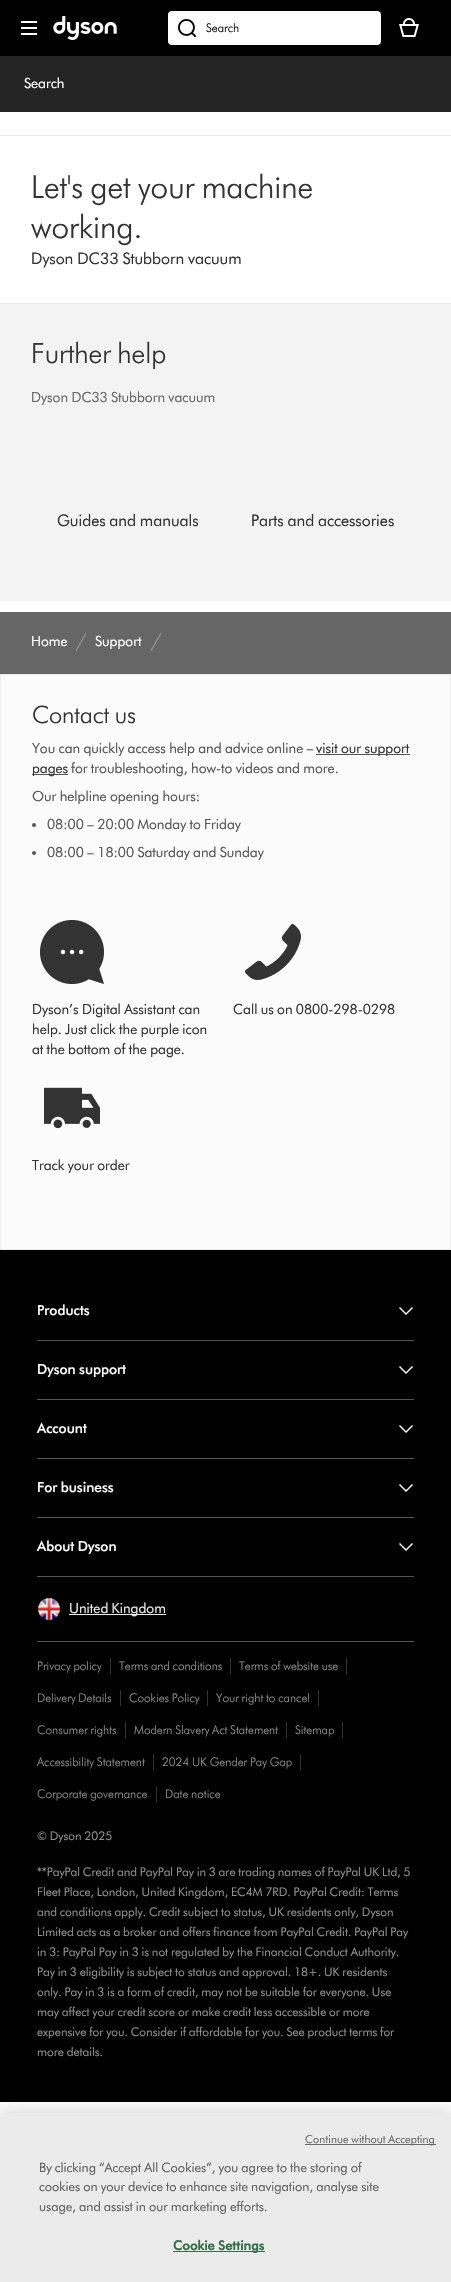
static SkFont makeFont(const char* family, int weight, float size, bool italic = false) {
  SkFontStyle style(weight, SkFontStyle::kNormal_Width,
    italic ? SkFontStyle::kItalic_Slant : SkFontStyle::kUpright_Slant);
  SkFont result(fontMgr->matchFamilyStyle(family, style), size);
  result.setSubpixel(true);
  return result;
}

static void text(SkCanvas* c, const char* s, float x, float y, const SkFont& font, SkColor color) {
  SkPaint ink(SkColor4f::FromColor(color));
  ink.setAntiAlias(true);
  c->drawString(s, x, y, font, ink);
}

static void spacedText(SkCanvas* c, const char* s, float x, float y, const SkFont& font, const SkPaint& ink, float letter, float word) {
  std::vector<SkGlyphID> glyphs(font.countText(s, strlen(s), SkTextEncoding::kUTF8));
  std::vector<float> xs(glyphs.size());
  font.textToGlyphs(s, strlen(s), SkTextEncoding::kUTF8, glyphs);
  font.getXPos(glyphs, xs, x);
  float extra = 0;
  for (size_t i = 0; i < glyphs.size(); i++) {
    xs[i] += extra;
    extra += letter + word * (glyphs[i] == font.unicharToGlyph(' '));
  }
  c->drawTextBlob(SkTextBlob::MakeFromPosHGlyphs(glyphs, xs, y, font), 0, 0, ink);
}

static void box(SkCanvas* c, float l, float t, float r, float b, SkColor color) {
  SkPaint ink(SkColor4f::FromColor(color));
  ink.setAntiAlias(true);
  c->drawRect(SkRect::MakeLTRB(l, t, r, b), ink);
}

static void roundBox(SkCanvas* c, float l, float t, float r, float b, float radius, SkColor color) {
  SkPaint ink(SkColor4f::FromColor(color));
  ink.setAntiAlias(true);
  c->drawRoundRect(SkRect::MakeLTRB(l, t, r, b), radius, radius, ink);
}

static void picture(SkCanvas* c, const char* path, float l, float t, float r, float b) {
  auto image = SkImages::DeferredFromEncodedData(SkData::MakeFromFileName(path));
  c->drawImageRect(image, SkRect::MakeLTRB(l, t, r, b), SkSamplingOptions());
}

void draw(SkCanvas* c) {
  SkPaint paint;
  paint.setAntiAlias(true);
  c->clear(0xffffffff);
  box(c, 0, 0, 451, 56, 0xff000000);
  box(c, 21, 27, 37, 29, 0xffffffff);
  box(c, 21, 21, 37, 23, 0xffffffff);
  box(c, 21, 33, 37, 35, 0xffffffff);
  picture(c, "img_01.png", 53, 16, 117, 40);
  roundBox(c, 168, 11, 381, 45, 4, 0xffffffff);
  picture(c, "img_02.png", 178, 19, 196, 37);
  SkFont face1 = makeFont("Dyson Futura", 300, 12);
  text(c, "Search", 206, 32, face1, 0xff000000);
  picture(c, "img_03.png", 399, 18, 419, 37);
  box(c, 0, 56, 451, 112, 0xff242424);
  SkFont face2 = makeFont("Dyson Futura", 400, 14);
  text(c, "Search", 24, 88, face2, 0xffffffff);
  box(c, 0, 135, 451, 136, 0xffececec);
  SkFont face3 = makeFont("Dyson Futura", 300, 32);
  text(c, "Let's get your machine", 31, 198, face3, 0xff333333);
  text(c, "working.", 31, 238, face3, 0xff333333);
  SkFont face4 = makeFont("Dyson Futura", 400, 16);
  text(c, "Dyson DC33 Stubborn vacuum", 31, 264, face4, 0xff333333);
  box(c, 0, 303, 451, 304, 0xffececec);
  box(c, 0, 304, 451, 601, 0xfff3f3f3);
  SkFont face5 = makeFont("Dyson Futura", 300, 28);
  text(c, "Further help", 31, 363, face5, 0xff333333);
  text(c, "Dyson DC33 Stubborn vacuum", 31, 402, face2, 0xff666666);
  text(c, "Guides and manuals", 57, 526, face4, 0xff333333);
  text(c, "Parts and accessories", 251, 526, face4, 0xff333333);
  box(c, 0, 612, 451, 674, 0xff666666);
  text(c, "Home", 31, 646, face2, 0xffffffff);
  paint.setColor(0xff999999);
  c->drawPath(SkPathBuilder(SkPathFillType::kEvenOdd).moveTo(85.5f, 633).lineTo(86.5f, 633.5f).lineTo(76.5f, 651).lineTo(75.5f, 650.5f).close().detach(), paint);
  text(c, "Support", 95, 646, face2, 0xffffffff);
  c->drawPath(SkPathBuilder(SkPathFillType::kEvenOdd).moveTo(160.5f, 633).lineTo(161.5f, 633.5f).lineTo(151.5f, 651).lineTo(150.5f, 650.5f).close().detach(), paint);
  paint.setColor(0xfffbfbfb);
  c->drawRect(SkRect::MakeLTRB(0.5f, 674.5f, 450.5f, 1249.5f), paint);
  paint.setStyle(SkPaint::kStroke_Style);
  paint.setStrokeWidth(1);
  paint.setColor(0xffebebeb);
  c->drawRect(SkRect::MakeLTRB(0.5f, 674.5f, 450.5f, 1249.5f), paint);
  SkFont face6 = makeFont("Dyson Futura", 300, 24);
  text(c, "Contact us", 32, 723, face6, 0xff333333);
  text(c, "You can quickly access help and advice online –", 32, 753, face2, 0xff555555);
  box(c, 316, 754, 410, 755, 0xff555555);
  text(c, "visit our support", 316, 753, face2, 0xff333333);
  box(c, 32, 774, 68, 775, 0xff555555);
  text(c, "pages", 32, 773, face2, 0xff333333);
  text(c, "for troubleshooting, how-to videos and more.", 71, 773, face2, 0xff555555);
  text(c, "Our helpline opening hours:", 32, 801, face2, 0xff555555);
  paint.setStyle(SkPaint::kFill_Style);
  paint.setColor(0xff555555);
  c->drawCircle(34, 825, 2, paint);
  text(c, "08:00 – 20:00 Monday to Friday", 47, 829, face2, 0xff555555);
  c->drawCircle(34, 853, 2, paint);
  text(c, "08:00 – 18:00 Saturday and Sunday", 47, 857, face2, 0xff555555);
  picture(c, "img_04.png", 40, 920, 104, 984);
  text(c, "Dyson’s Digital Assistant can", 32, 1014, face2, 0xff333333);
  text(c, "help. Just click the purple icon", 32, 1034, face2, 0xff333333);
  text(c, "at the bottom of the page.", 32, 1054, face2, 0xff333333);
  picture(c, "img_05.png", 245, 924, 301, 980);
  text(c, "Call us on 0800-298-0298", 233, 1014, face2, 0xff333333);
  picture(c, "img_06.png", 44, 1087, 100, 1129);
  text(c, "Track your order", 32, 1170, face2, 0xff333333);
  box(c, 0, 1250, 451, 2102, 0xff000000);
  box(c, 37, 1340, 414, 1341, 0xff555555);
  SkFont face7 = makeFont("Dyson Futura", 500, 14);
  text(c, "Products", 37, 1315, face7, 0xffffffff);
  picture(c, "img_07.png", 399, 1307, 413, 1315);
  box(c, 37, 1399, 414, 1400, 0xff555555);
  text(c, "Dyson support", 37, 1374, face7, 0xffffffff);
  picture(c, "img_07.png", 399, 1366, 413, 1374);
  box(c, 37, 1458, 414, 1459, 0xff555555);
  text(c, "Account", 37, 1433, face7, 0xffffffff);
  picture(c, "img_07.png", 399, 1425, 413, 1433);
  box(c, 37, 1517, 414, 1518, 0xff555555);
  text(c, "For business", 37, 1492, face7, 0xffffffff);
  picture(c, "img_07.png", 399, 1484, 413, 1492);
  box(c, 37, 1576, 414, 1577, 0xff555555);
  text(c, "About Dyson", 37, 1551, face7, 0xffffffff);
  picture(c, "img_07.png", 399, 1543, 413, 1551);
  box(c, 37, 1641, 414, 1642, 0xff555555);
  picture(c, "img_08.png", 38, 1598, 60, 1620);
  box(c, 69, 1614, 166, 1615, 0xffebebeb);
  text(c, "United Kingdom", 69, 1613, face2, 0xffebebeb);
  box(c, 110, 1658, 111, 1674, 0xff333333);
  text(c, "Privacy policy", 37, 1670, face1, 0xff919191);
  box(c, 230, 1658, 231, 1674, 0xff333333);
  text(c, "Terms and conditions", 119, 1670, face1, 0xff919191);
  box(c, 346, 1658, 347, 1674, 0xff333333);
  text(c, "Terms of website use", 239, 1670, face1, 0xff919191);
  box(c, 120, 1690, 121, 1706, 0xff333333);
  text(c, "Delivery Details", 37, 1702, face1, 0xff919191);
  box(c, 207, 1690, 208, 1706, 0xff333333);
  text(c, "Cookies Policy", 129, 1702, face1, 0xff919191);
  box(c, 318, 1690, 319, 1706, 0xff333333);
  text(c, "Your right to cancel", 216, 1702, face1, 0xff919191);
  box(c, 125, 1722, 126, 1738, 0xff333333);
  text(c, "Consumer rights", 37, 1734, face1, 0xff919191);
  box(c, 286, 1722, 287, 1738, 0xff333333);
  text(c, "Modern Slavery Act Statement", 134, 1734, face1, 0xff919191);
  box(c, 342, 1722, 343, 1738, 0xff333333);
  text(c, "Sitemap", 295, 1734, face1, 0xff919191);
  box(c, 153, 1754, 154, 1770, 0xff333333);
  text(c, "Accessibility Statement", 37, 1766, face1, 0xff919191);
  box(c, 300, 1754, 301, 1770, 0xff333333);
  text(c, "2024 UK Gender Pay Gap", 162, 1766, face1, 0xff919191);
  box(c, 156, 1786, 157, 1802, 0xff333333);
  text(c, "Corporate governance", 37, 1798, face1, 0xff919191);
  text(c, "Date notice", 165, 1798, face1, 0xff919191);
  SkFont face8 = makeFont("Dyson Futura", 400, 12);
  text(c, "© Dyson 2025", 37, 1840, face8, 0xff919191);
  text(c, "**PayPal Credit and PayPal Pay in 3 are trading names of PayPal UK Ltd, 5", 37, 1876, face8, 0xff919191);
  text(c, "Fleet Place, London, United Kingdom, EC4M 7RD. PayPal Credit: Terms", 37, 1896, face8, 0xff919191);
  text(c, "and conditions apply. Credit subject to status, UK residents only, Dyson", 37, 1916, face8, 0xff919191);
  text(c, "Limited acts as a broker and offers finance from PayPal Credit. PayPal Pay", 37, 1936, face8, 0xff919191);
  text(c, "in 3: PayPal Pay in 3 is not regulated by the Financial Conduct Authority.", 37, 1956, face8, 0xff919191);
  text(c, "Pay in 3 eligibility is subject to status and approval. 18+. UK residents", 37, 1976, face8, 0xff919191);
  text(c, "only. Pay in 3 is a form of credit, may not be suitable for everyone. Use", 37, 1996, face8, 0xff919191);
  text(c, "may affect your credit score or make credit less accessible or more", 37, 2016, face8, 0xff919191);
  text(c, "expensive for you. Consider if affordable for you. See product terms for", 37, 2036, face8, 0xff919191);
  text(c, "more details.", 37, 2056, face8, 0xff919191);
  paint.setColor(0x33000000);
  paint.setMaskFilter(SkMaskFilter::MakeBlur(kNormal_SkBlurStyle, 9));
  c->drawRect(SkRect::MakeLTRB(0, 2113, 451, 2282), paint);
  paint.setMaskFilter(nullptr);
  box(c, 0, 2113, 451, 2282, 0xffebebeb);
  box(c, 305, 2144, 436, 2145, 0xff696969);
  SkFont face9 = makeFont("Dyson Futura", 400, 11);
  paint.setColor(0xff666666);
  spacedText(c, "Continue without Accepting", 305, 2143, face9, paint, 0.1f, 0);
  SkFont face10 = makeFont("Dyson Futura", 400, 13);
  text(c, "By clicking “Accept All Cookies”, you agree to the storing of", 39, 2172, face10, 0xff606060);
  text(c, "cookies on your device to enhance site navigation, analyse site", 39, 2191, face10, 0xff606060);
  text(c, "usage, and assist in our marketing efforts.", 39, 2211, face10, 0xff606060);
  box(c, 173, 2251, 265, 2252, 0xff346e4a);
  SkFont face11 = makeFont("Dyson Futura", 700, 13);
  paint.setColor(0xff346e4a);
  spacedText(c, "Cookie Settings", 173, 2250, face11, paint, 0.1f, 0);
}
